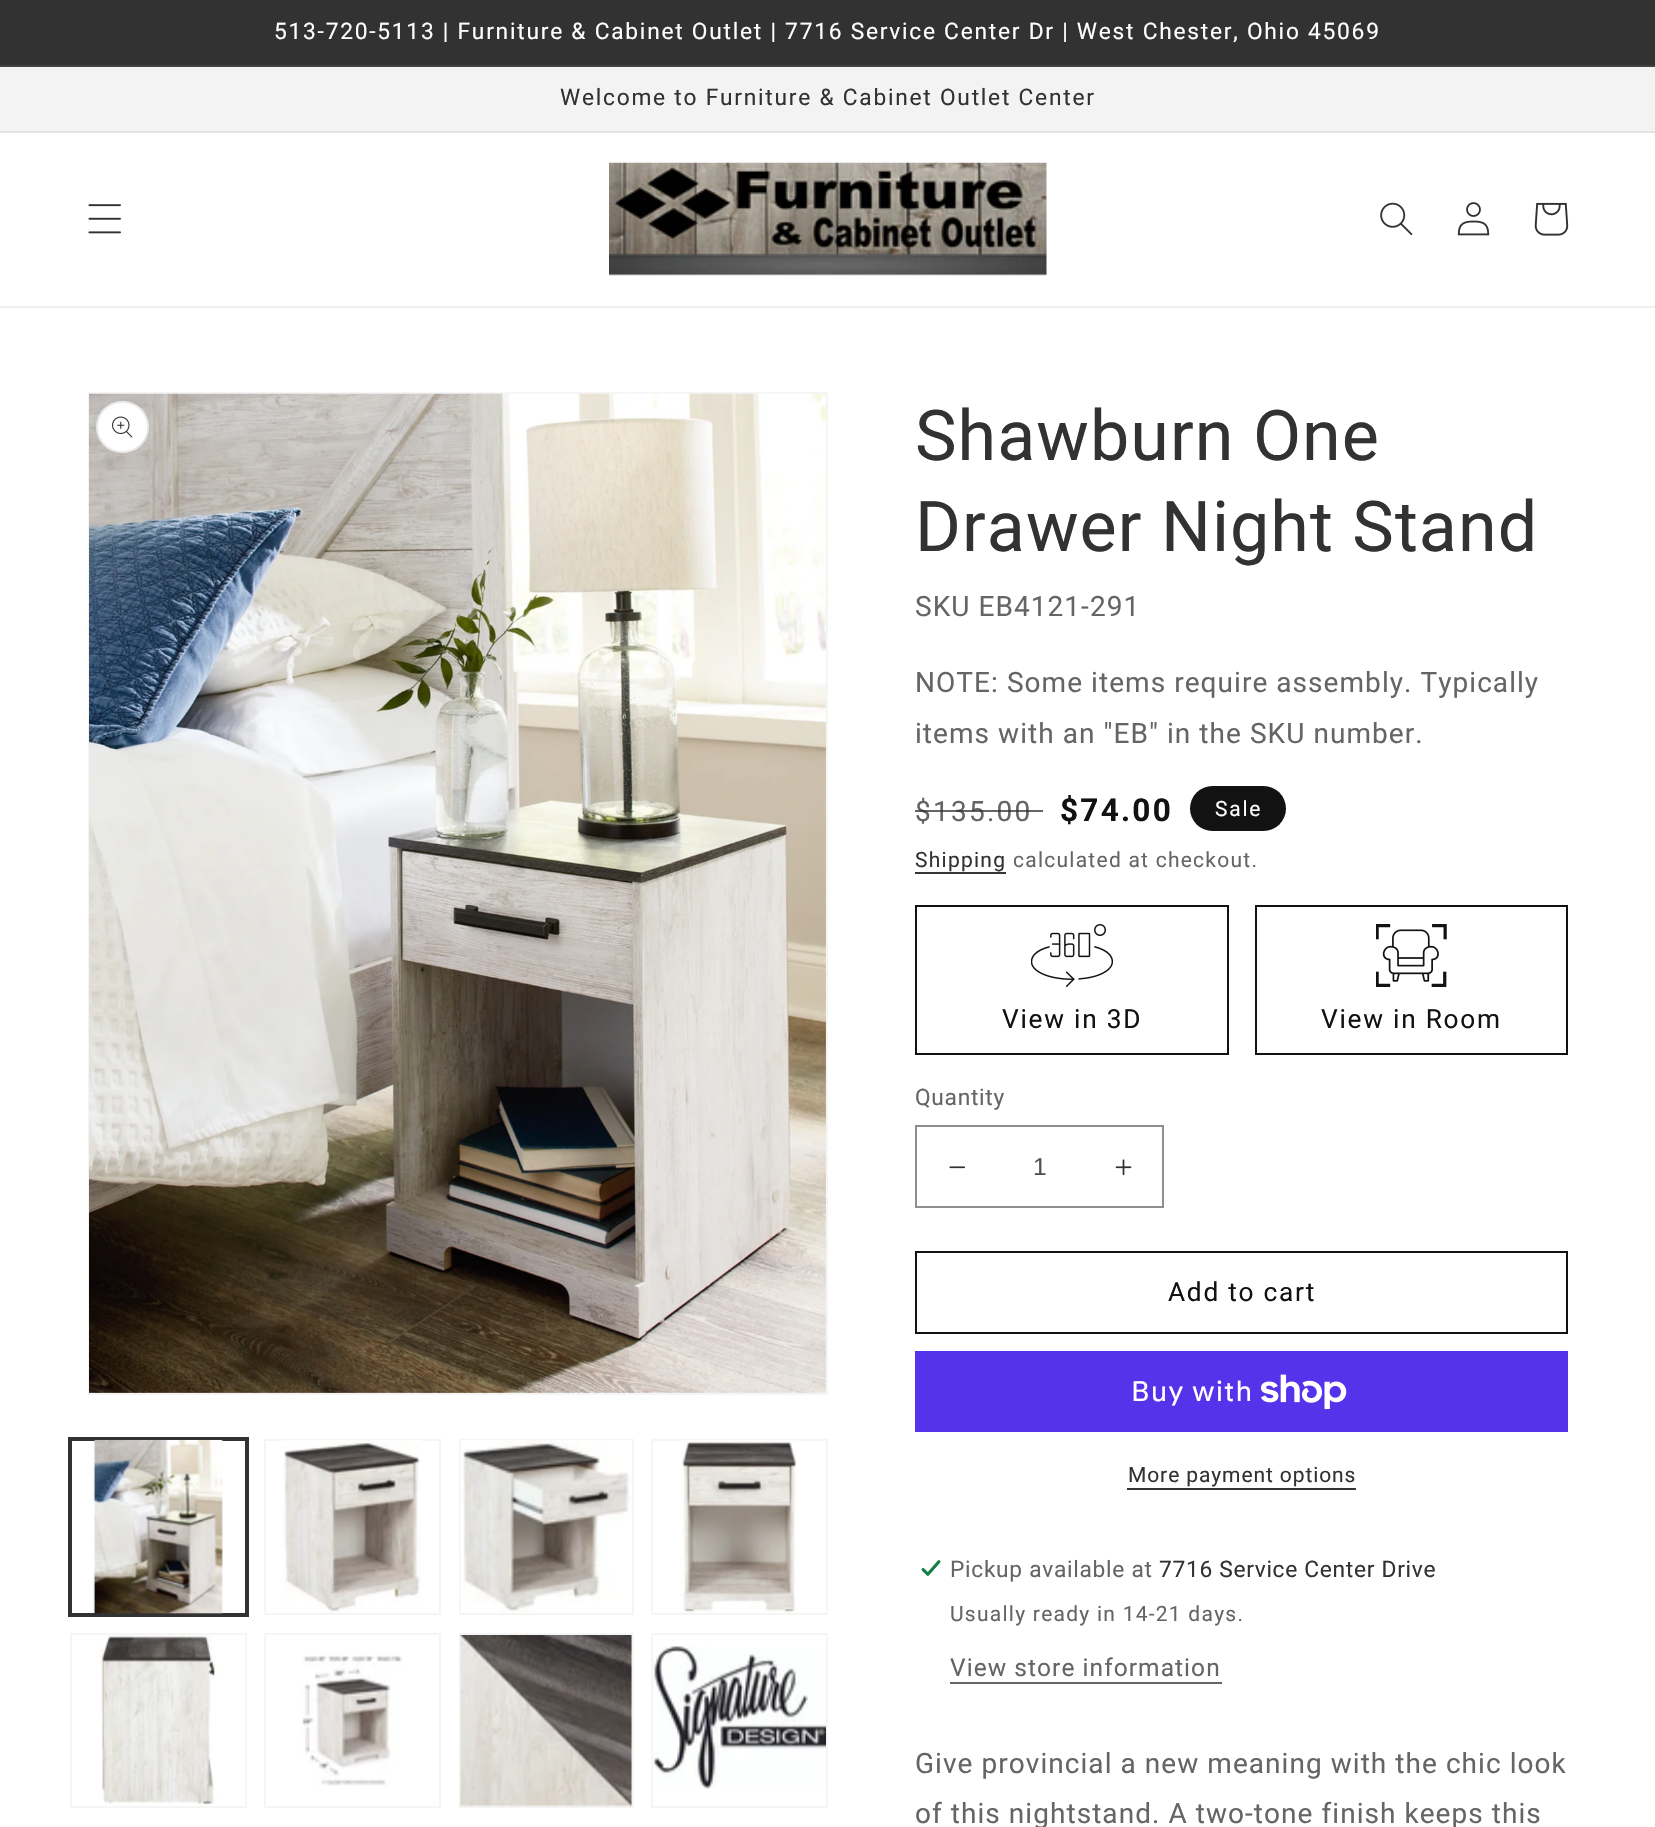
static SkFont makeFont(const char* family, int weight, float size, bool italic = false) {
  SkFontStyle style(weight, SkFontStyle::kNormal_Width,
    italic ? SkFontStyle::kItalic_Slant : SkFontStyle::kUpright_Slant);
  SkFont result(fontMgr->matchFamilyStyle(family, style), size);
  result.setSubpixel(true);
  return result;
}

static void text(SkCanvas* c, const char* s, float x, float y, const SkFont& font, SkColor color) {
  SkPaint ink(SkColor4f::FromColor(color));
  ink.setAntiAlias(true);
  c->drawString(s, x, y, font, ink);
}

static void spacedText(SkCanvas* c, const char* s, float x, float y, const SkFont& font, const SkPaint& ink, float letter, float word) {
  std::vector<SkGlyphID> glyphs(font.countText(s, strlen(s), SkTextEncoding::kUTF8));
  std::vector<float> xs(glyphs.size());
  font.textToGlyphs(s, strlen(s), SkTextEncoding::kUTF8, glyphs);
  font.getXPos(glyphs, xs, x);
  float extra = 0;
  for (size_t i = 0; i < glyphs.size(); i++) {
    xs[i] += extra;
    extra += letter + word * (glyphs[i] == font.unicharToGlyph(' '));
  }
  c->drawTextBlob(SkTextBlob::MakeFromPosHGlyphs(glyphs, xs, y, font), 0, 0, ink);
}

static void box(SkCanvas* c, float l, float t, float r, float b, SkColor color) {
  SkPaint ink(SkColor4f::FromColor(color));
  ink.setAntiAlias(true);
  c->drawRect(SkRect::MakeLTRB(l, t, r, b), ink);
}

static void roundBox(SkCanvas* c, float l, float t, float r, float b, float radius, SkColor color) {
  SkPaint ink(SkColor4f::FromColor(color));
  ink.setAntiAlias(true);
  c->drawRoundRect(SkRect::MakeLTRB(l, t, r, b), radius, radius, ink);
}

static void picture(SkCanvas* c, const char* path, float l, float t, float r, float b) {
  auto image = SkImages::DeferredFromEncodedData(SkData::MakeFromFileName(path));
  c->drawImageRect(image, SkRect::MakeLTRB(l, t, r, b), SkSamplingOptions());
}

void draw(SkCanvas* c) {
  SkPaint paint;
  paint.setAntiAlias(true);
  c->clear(0xffffffff);
  box(c, 0, 0, 1655, 65, 0xff333232);
  box(c, 0, 65, 1655, 67, 0xff434242);
  SkFont face1 = makeFont("Roboto", 400, 22.75f);
  paint.setColor(0xffffffff);
  spacedText(c, "513-720-5113 | Furniture & Cabinet Outlet | 7716 Service Center Dr | West Chester, Ohio 45069", 274, 39, face1, paint, 1.75f, 0);
  box(c, 0, 67, 1655, 131, 0xfff3f3f3);
  box(c, 0, 131, 1655, 133, 0xffe4e4e4);
  paint.setColor(0xff333232);
  spacedText(c, "Welcome to Furniture & Cabinet Outlet Center", 560, 105, face1, paint, 1.75f, 0);
  box(c, 0, 306, 1655, 308, 0xffefefef);
  picture(c, "img_01.png", 88, 204, 121, 234);
  picture(c, "img_02.png", 609, 162, 1047, 276);
  picture(c, "img_03.png", 1380, 202, 1413, 236);
  picture(c, "img_04.png", 1457, 202, 1490, 236);
  picture(c, "img_05.png", 1534, 202, 1569, 236);
  paint.setStyle(SkPaint::kStroke_Style);
  paint.setStrokeWidth(2);
  paint.setColor(0xfff5f5f5);
  c->drawRect(SkRect::MakeLTRB(89, 393, 827, 1394), paint);
  picture(c, "img_06.png", 89, 393, 826, 1393);
  roundBox(c, 96, 401, 149, 453, 26, 0xffffffff);
  paint.setColor(0x1a333232);
  c->drawRoundRect(SkRect::MakeLTRB(97, 402, 148, 452), 25, 25, paint);
  picture(c, "img_07.png", 112, 416, 133, 438);
  paint.setColor(0xff333232);
  c->drawRect(SkRect::MakeLTRB(69, 1438, 248, 1616), paint);
  c->drawRect(SkRect::MakeLTRB(71, 1440, 246, 1614), paint);
  picture(c, "img_08.png", 93, 1440, 223, 1614);
  paint.setColor(0xfff5f5f5);
  c->drawRect(SkRect::MakeLTRB(265, 1440, 440, 1614), paint);
  picture(c, "img_09.png", 282, 1440, 422, 1613);
  c->drawRect(SkRect::MakeLTRB(460, 1440, 633, 1614), paint);
  picture(c, "img_10.png", 460, 1440, 632, 1613);
  c->drawRect(SkRect::MakeLTRB(652, 1440, 827, 1614), paint);
  picture(c, "img_11.png", 681, 1440, 798, 1613);
  c->drawRect(SkRect::MakeLTRB(71, 1634, 246, 1807), paint);
  picture(c, "img_12.png", 100, 1635, 217, 1805);
  c->drawRect(SkRect::MakeLTRB(265, 1634, 440, 1807), paint);
  picture(c, "img_13.png", 302, 1655, 403, 1786);
  c->drawRect(SkRect::MakeLTRB(460, 1634, 633, 1807), paint);
  picture(c, "img_14.png", 460, 1635, 632, 1807);
  c->drawRect(SkRect::MakeLTRB(652, 1634, 827, 1807), paint);
  picture(c, "img_15.png", 653, 1646, 826, 1789);
  SkFont face2 = makeFont("Roboto", 400, 70);
  paint.setStyle(SkPaint::kFill_Style);
  paint.setColor(0xff333232);
  spacedText(c, "Shawburn One", 915, 460, face2, paint, 1.05f, 0);
  spacedText(c, "Drawer Night Stand", 915, 551, face2, paint, 1.05f, 0);
  SkFont face3 = makeFont("Roboto", 400, 28);
  paint.setColor(0xff666565);
  spacedText(c, "SKU EB4121-291", 915, 616, face3, paint, 1.05f, 0);
  spacedText(c, "NOTE: Some items require assembly. Typically", 915, 692, face3, paint, 1.05f, 0);
  spacedText(c, "items with an \"EB\" in the SKU number.", 915, 743, face3, paint, 1.05f, 0);
  spacedText(c, "$135.00", 915, 821, face3, paint, 2.25f, 0);
  box(c, 915, 810, 1043, 812, 0xbf333232);
  SkFont face4 = makeFont("Roboto", 700, 31.5f);
  paint.setColor(0xff121212);
  spacedText(c, "$74.00", 1060, 821, face4, paint, 2.25f, 0);
  roundBox(c, 1190, 786, 1286, 831, 22.5f, 0xff121212);
  paint.setStyle(SkPaint::kStroke_Style);
  paint.setColor(0x1a121212);
  c->drawRoundRect(SkRect::MakeLTRB(1191, 787, 1285, 830), 21.5f, 21.5f, paint);
  SkFont face5 = makeFont("Roboto", 400, 21);
  paint.setStyle(SkPaint::kFill_Style);
  paint.setColor(0xffffffff);
  spacedText(c, "Sale", 1215, 816, face5, paint, 1.75f, 0);
  paint.setColor(0xff333232);
  spacedText(c, "Shipping", 915, 867, face5, paint, 1.25f, 0);
  box(c, 915, 872, 1006, 874, 0xff363636);
  paint.setColor(0xff666565);
  spacedText(c, "calculated at checkout.", 1013, 867, face5, paint, 1.25f, 0);
  paint.setStyle(SkPaint::kStroke_Style);
  paint.setColor(0xff121212);
  c->drawRect(SkRect::MakeLTRB(916, 906, 1228, 1054), paint);
  picture(c, "img_16.png", 1031, 924, 1113, 987);
  SkFont face6 = makeFont("Roboto", 400, 26.25f);
  paint.setStyle(SkPaint::kFill_Style);
  spacedText(c, "View in 3D", 1002, 1028, face6, paint, 1.75f, 0);
  paint.setStyle(SkPaint::kStroke_Style);
  c->drawRect(SkRect::MakeLTRB(1256, 906, 1567, 1054), paint);
  picture(c, "img_17.png", 1376, 924, 1447, 987);
  paint.setStyle(SkPaint::kFill_Style);
  spacedText(c, "View in Room", 1321, 1028, face6, paint, 1.75f, 0);
  paint.setColor(0xff666565);
  spacedText(c, "Quantity", 915, 1105, face1, paint, 0.7f, 0);
  picture(c, "img_18.png", 949, 1166, 966, 1169);
  picture(c, "img_19.png", 1115, 1159, 1132, 1176);
  paint.setStyle(SkPaint::kStroke_Style);
  paint.setColor(0xff8f8e8e);
  c->drawRect(SkRect::MakeLTRB(916, 1126, 1163, 1207), paint);
  SkFont face7 = makeFont("Liberation Sans", 400, 24.5f);
  text(c, "1", 1033, 1175, face7, 0xff525151);
  paint.setColor(0xff121212);
  c->drawRect(SkRect::MakeLTRB(916, 1252, 1567, 1333), paint);
  paint.setStyle(SkPaint::kFill_Style);
  spacedText(c, "Add to cart", 1168, 1301, face6, paint, 1.75f, 0);
  box(c, 915, 1351, 1568, 1432, 0xff5433eb);
  SkFont face8 = makeFont("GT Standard", 400, 28);
  paint.setColor(0xffffffff);
  spacedText(c, "Buy with", 1131, 1401, face8, paint, 1.05f, 0);
  picture(c, "img_20.png", 1261, 1374, 1347, 1409);
  paint.setColor(0xff333232);
  spacedText(c, "More payment options", 1128, 1482, face5, paint, 0.9f, 0);
  box(c, 1127, 1488, 1356, 1490, 0xff333232);
  picture(c, "img_21.png", 921, 1560, 941, 1576);
  paint.setColor(0xff666565);
  spacedText(c, "Pickup available at", 950, 1577, face1, paint, 0.7f, 0);
  paint.setColor(0xff333232);
  spacedText(c, "7716 Service Center Drive", 1159, 1577, face1, paint, 0.7f, 0);
  paint.setColor(0xff666565);
  spacedText(c, "Usually ready in 14-21 days.", 950, 1621, face5, paint, 1.25f, 0);
  SkFont face9 = makeFont("Roboto", 400, 24.5f);
  spacedText(c, "View store information", 950, 1676, face9, paint, 1.05f, 0);
  box(c, 950, 1682, 1222, 1684, 0xff666565);
  spacedText(c, "Give provincial a new meaning with the chic look", 915, 1773, face3, paint, 1.05f, 0);
  spacedText(c, "of this nightstand. A two-tone finish keeps this", 915, 1823, face3, paint, 1.05f, 0);
}
